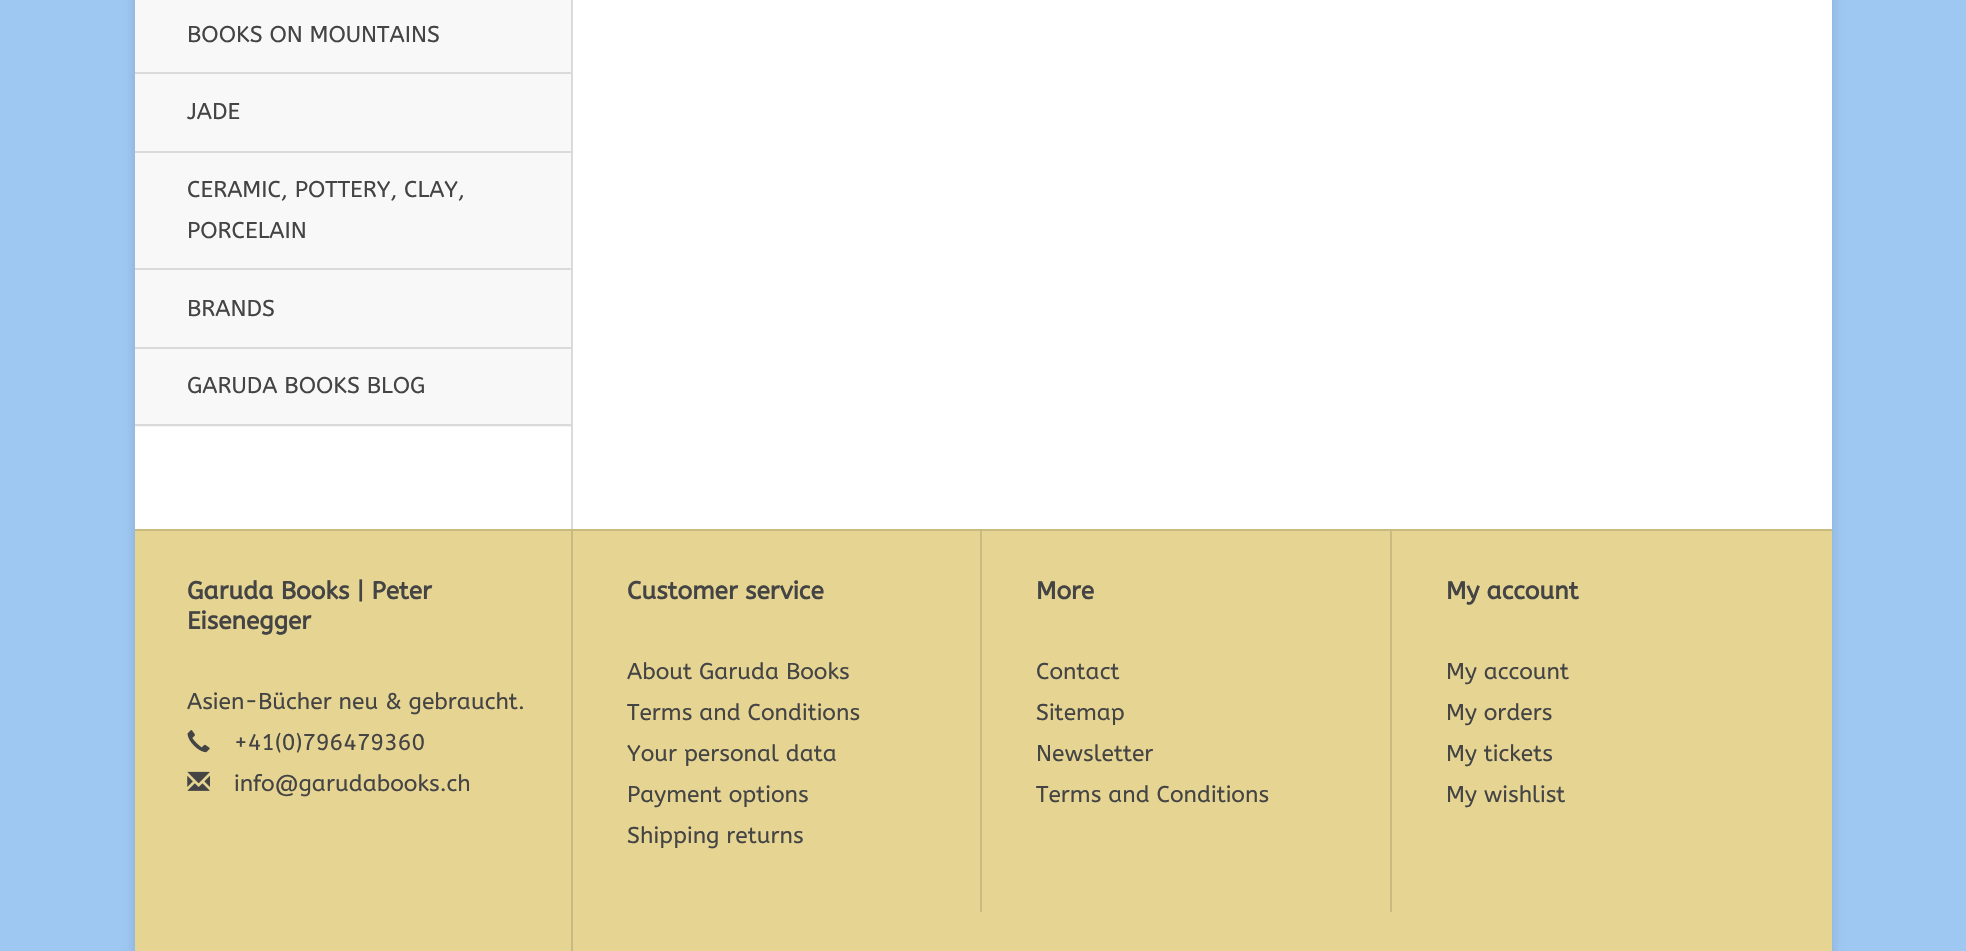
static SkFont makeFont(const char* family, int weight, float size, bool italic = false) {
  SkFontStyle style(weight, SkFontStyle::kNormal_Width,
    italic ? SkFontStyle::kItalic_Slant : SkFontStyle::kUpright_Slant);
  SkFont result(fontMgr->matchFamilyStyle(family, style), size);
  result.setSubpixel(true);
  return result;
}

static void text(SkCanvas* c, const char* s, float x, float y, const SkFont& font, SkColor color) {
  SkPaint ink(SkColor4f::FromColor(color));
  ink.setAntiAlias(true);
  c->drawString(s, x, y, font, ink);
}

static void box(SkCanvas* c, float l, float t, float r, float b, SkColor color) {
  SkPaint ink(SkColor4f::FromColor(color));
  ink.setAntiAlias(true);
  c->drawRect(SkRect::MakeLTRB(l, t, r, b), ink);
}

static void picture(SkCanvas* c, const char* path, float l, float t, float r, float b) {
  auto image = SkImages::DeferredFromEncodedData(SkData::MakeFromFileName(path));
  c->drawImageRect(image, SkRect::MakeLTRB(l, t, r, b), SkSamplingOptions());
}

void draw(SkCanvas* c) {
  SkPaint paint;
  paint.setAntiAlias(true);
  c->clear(0xff9ec7f2);
  paint.setColor(0x21000000);
  paint.setMaskFilter(SkMaskFilter::MakeBlur(kNormal_SkBlurStyle, 6));
  c->drawRoundRect(SkRect::MakeLTRB(135, -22, 1832, 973), 4, 4, paint);
  paint.setMaskFilter(nullptr);
  box(c, 135, 0, 1832, 529, 0xffffffff);
  box(c, 571, 0, 573, 529, 0xffdadada);
  box(c, 135, 0, 571, 72, 0xfff8f8f8);
  SkFont face1 = makeFont("ABeeZee", 400, 22.75f);
  text(c, "BOOKS ON MOUNTAINS", 187, 42, face1, 0xff444444);
  box(c, 135, 74, 571, 151, 0xfff8f8f8);
  box(c, 135, 72, 571, 74, 0xffdadada);
  text(c, "JADE", 187, 119, face1, 0xff444444);
  box(c, 135, 153, 571, 268, 0xfff8f8f8);
  box(c, 135, 151, 571, 153, 0xffdadada);
  text(c, "CERAMIC, POTTERY, CLAY,", 187, 197, face1, 0xff444444);
  text(c, "PORCELAIN", 187, 238, face1, 0xff444444);
  box(c, 135, 270, 571, 347, 0xfff8f8f8);
  box(c, 135, 268, 571, 270, 0xffdadada);
  text(c, "BRANDS", 187, 316, face1, 0xff444444);
  paint.setColor(0x0a000000);
  c->drawPath(SkPathBuilder().moveTo(135, 425).lineTo(135, 427).lineTo(571, 427).lineTo(571, 348).lineTo(570, 348).lineTo(570, 425).close().detach(), paint);
  box(c, 135, 349, 571, 424, 0xfff8f8f8);
  box(c, 135, 347, 571, 349, 0xffdadada);
  box(c, 135, 424, 571, 426, 0xffdadada);
  text(c, "GARUDA BOOKS BLOG", 187, 393, face1, 0xff444444);
  box(c, 135, 531, 1832, 951, 0xffe5d492);
  box(c, 135, 529, 1832, 531, 0xffc9ba80);
  SkFont face2 = makeFont("ABeeZee", 700, 24.5f);
  text(c, "Garuda Books | Peter", 187, 599, face2, 0xff444444);
  text(c, "Eisenegger", 187, 629, face2, 0xff444444);
  text(c, "Asien-Bücher neu & gebraucht.", 187, 709, face1, 0xff444444);
  picture(c, "img_01.png", 187, 730, 210, 753);
  text(c, "+41(0)796479360", 234, 750, face1, 0xff444444);
  picture(c, "img_02.png", 187, 771, 210, 791);
  text(c, "info@garudabooks.ch", 234, 791, face1, 0xff444444);
  box(c, 571, 530, 573, 951, 0xffc9ba80);
  text(c, "Customer service", 627, 599, face2, 0xff444444);
  text(c, "About Garuda Books", 627, 679, face1, 0xff444444);
  text(c, "Terms and Conditions", 627, 720, face1, 0xff444444);
  text(c, "Your personal data", 627, 761, face1, 0xff444444);
  text(c, "Payment options", 627, 802, face1, 0xff444444);
  text(c, "Shipping returns", 627, 843, face1, 0xff444444);
  box(c, 980, 530, 982, 912, 0xffc9ba80);
  text(c, "More", 1036, 599, face2, 0xff444444);
  text(c, "Contact", 1036, 679, face1, 0xff444444);
  text(c, "Sitemap", 1036, 720, face1, 0xff444444);
  text(c, "Newsletter", 1036, 761, face1, 0xff444444);
  text(c, "Terms and Conditions", 1036, 802, face1, 0xff444444);
  box(c, 1390, 530, 1392, 912, 0xffc9ba80);
  text(c, "My account", 1446, 599, face2, 0xff444444);
  text(c, "My account", 1446, 679, face1, 0xff444444);
  text(c, "My orders", 1446, 720, face1, 0xff444444);
  text(c, "My tickets", 1446, 761, face1, 0xff444444);
  text(c, "My wishlist", 1446, 802, face1, 0xff444444);
}
